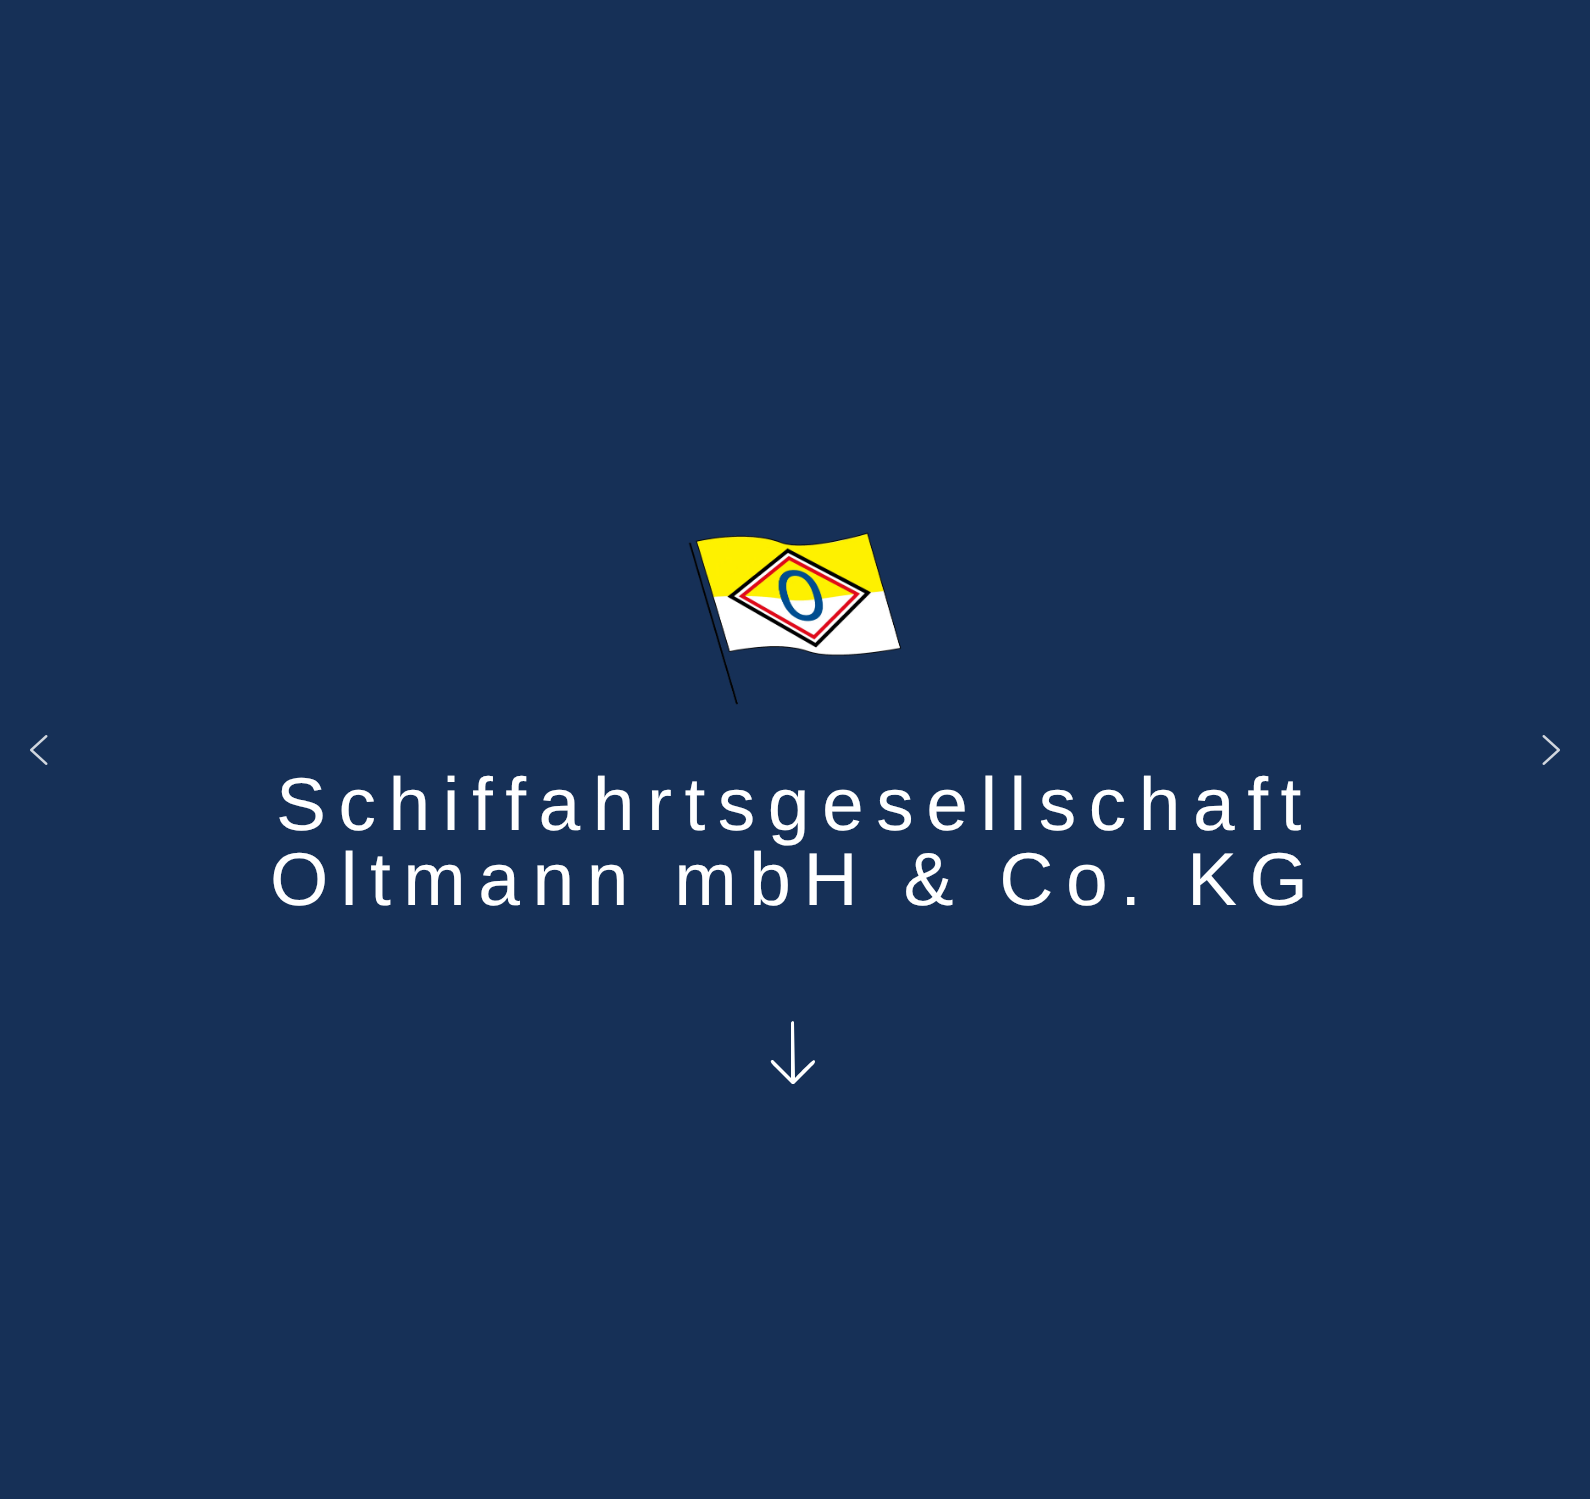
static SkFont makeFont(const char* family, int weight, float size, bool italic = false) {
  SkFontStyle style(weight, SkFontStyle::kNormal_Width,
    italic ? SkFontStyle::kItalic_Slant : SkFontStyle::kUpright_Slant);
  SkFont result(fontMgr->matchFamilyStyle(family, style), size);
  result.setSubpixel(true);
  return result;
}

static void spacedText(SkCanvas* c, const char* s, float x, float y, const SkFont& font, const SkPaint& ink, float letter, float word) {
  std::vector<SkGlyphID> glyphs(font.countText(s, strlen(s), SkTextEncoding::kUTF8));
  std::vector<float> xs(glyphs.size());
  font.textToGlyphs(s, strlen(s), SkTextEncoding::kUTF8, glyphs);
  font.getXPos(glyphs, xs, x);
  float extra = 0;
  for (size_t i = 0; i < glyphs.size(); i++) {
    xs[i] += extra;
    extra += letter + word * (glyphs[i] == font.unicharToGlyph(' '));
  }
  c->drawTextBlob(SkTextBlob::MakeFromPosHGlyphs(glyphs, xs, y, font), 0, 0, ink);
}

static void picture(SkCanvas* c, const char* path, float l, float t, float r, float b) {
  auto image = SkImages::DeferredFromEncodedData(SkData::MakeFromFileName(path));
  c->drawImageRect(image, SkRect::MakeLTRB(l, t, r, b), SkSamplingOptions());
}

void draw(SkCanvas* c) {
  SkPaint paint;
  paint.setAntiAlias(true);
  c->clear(0xff163057);
  picture(c, "img_01.png", 30, 735, 48, 765);
  picture(c, "img_02.png", 1542, 735, 1560, 765);
  picture(c, "img_03.png", 688, 532, 902, 705);
  SkFont face1 = makeFont("Liberation Sans", 400, 75);
  paint.setColor(0xffffffff);
  spacedText(c, "Schiffahrtsgesellschaft", 276, 830, face1, paint, 12.5f, 0);
  spacedText(c, "Oltmann mbH & Co. KG", 270, 905, face1, paint, 12.5f, 0);
  c->drawPath(SkPathBuilder().moveTo(794, 1084).lineTo(808, 1070).cubicTo(813, 1065, 817, 1062, 814, 1060).cubicTo(812, 1060, 797, 1076, 795, 1078).lineTo(794, 1022).lineTo(793, 1021).cubicTo(792, 1021, 791, 1022, 791, 1023).lineTo(791, 1078).lineTo(773, 1060).lineTo(772, 1060).cubicTo(769, 1061, 772, 1064, 775, 1067).lineTo(792, 1084).cubicTo(793, 1084, 794, 1084, 794, 1084).close().detach(), paint);
}
